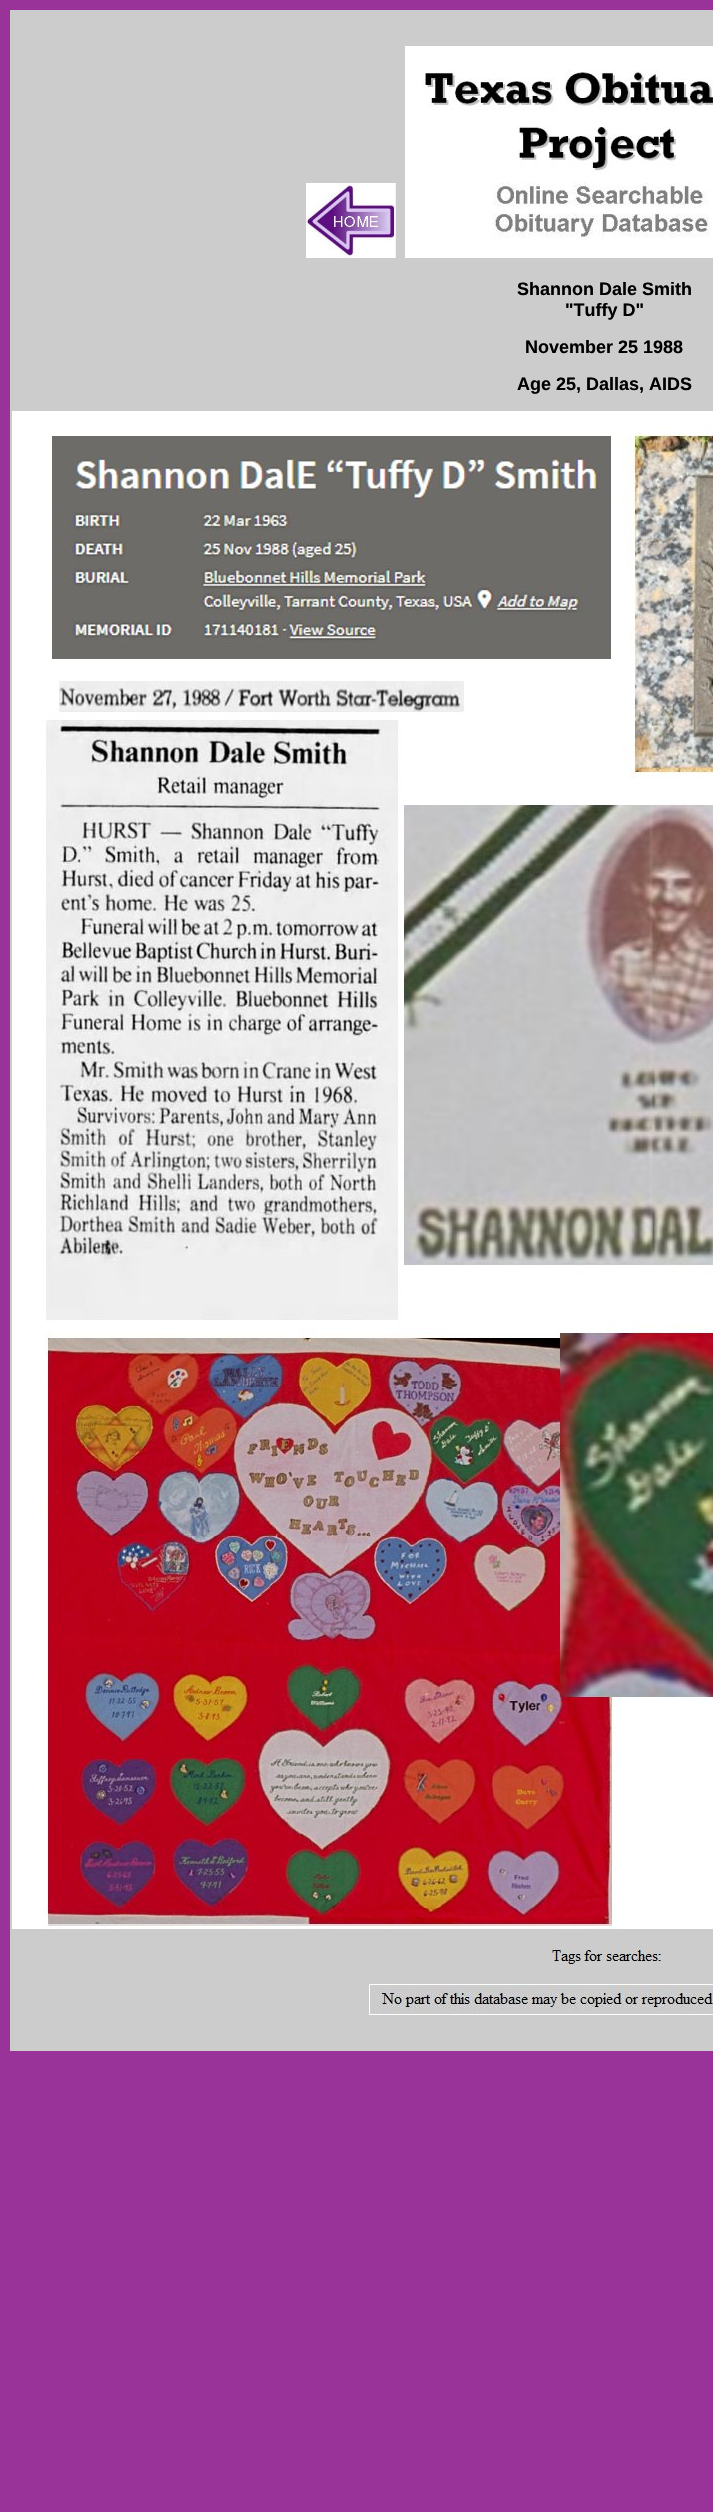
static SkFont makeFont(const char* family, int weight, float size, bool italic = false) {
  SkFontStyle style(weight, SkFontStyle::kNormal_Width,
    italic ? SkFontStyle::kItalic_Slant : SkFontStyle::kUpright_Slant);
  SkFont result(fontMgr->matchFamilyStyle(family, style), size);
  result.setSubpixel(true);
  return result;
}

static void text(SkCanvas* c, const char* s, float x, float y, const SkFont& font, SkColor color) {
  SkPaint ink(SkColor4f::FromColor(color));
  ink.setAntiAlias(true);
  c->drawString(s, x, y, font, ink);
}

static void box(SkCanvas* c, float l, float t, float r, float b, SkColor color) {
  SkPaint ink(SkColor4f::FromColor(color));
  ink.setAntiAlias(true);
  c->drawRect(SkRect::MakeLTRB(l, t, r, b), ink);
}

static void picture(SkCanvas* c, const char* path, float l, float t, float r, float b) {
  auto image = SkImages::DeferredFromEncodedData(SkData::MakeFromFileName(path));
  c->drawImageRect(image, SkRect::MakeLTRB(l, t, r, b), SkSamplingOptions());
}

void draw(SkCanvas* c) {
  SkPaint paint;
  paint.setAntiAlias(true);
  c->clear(0xff993399);
  box(c, 10, 10, 713, 2051, 0xffcccccc);
  picture(c, "img_01.png", 306, 183, 396, 258);
  picture(c, "img_02.png", 405, 46, 713, 258);
  SkFont face1 = makeFont("Liberation Sans", 700, 18);
  text(c, "Shannon Dale Smith", 517, 295, face1, 0xff000000);
  text(c, "\"Tuffy D\"", 565, 316, face1, 0xff000000);
  text(c, "November 25 1988", 525, 353, face1, 0xff000000);
  text(c, "Age 25, Dallas, AIDS", 517, 390, face1, 0xff000000);
  picture(c, "img_03.png", 12, 411, 713, 1929);
  picture(c, "img_04.png", 544, 1945, 664, 1968);
  picture(c, "img_05.png", 369, 1984, 713, 2015);
}
